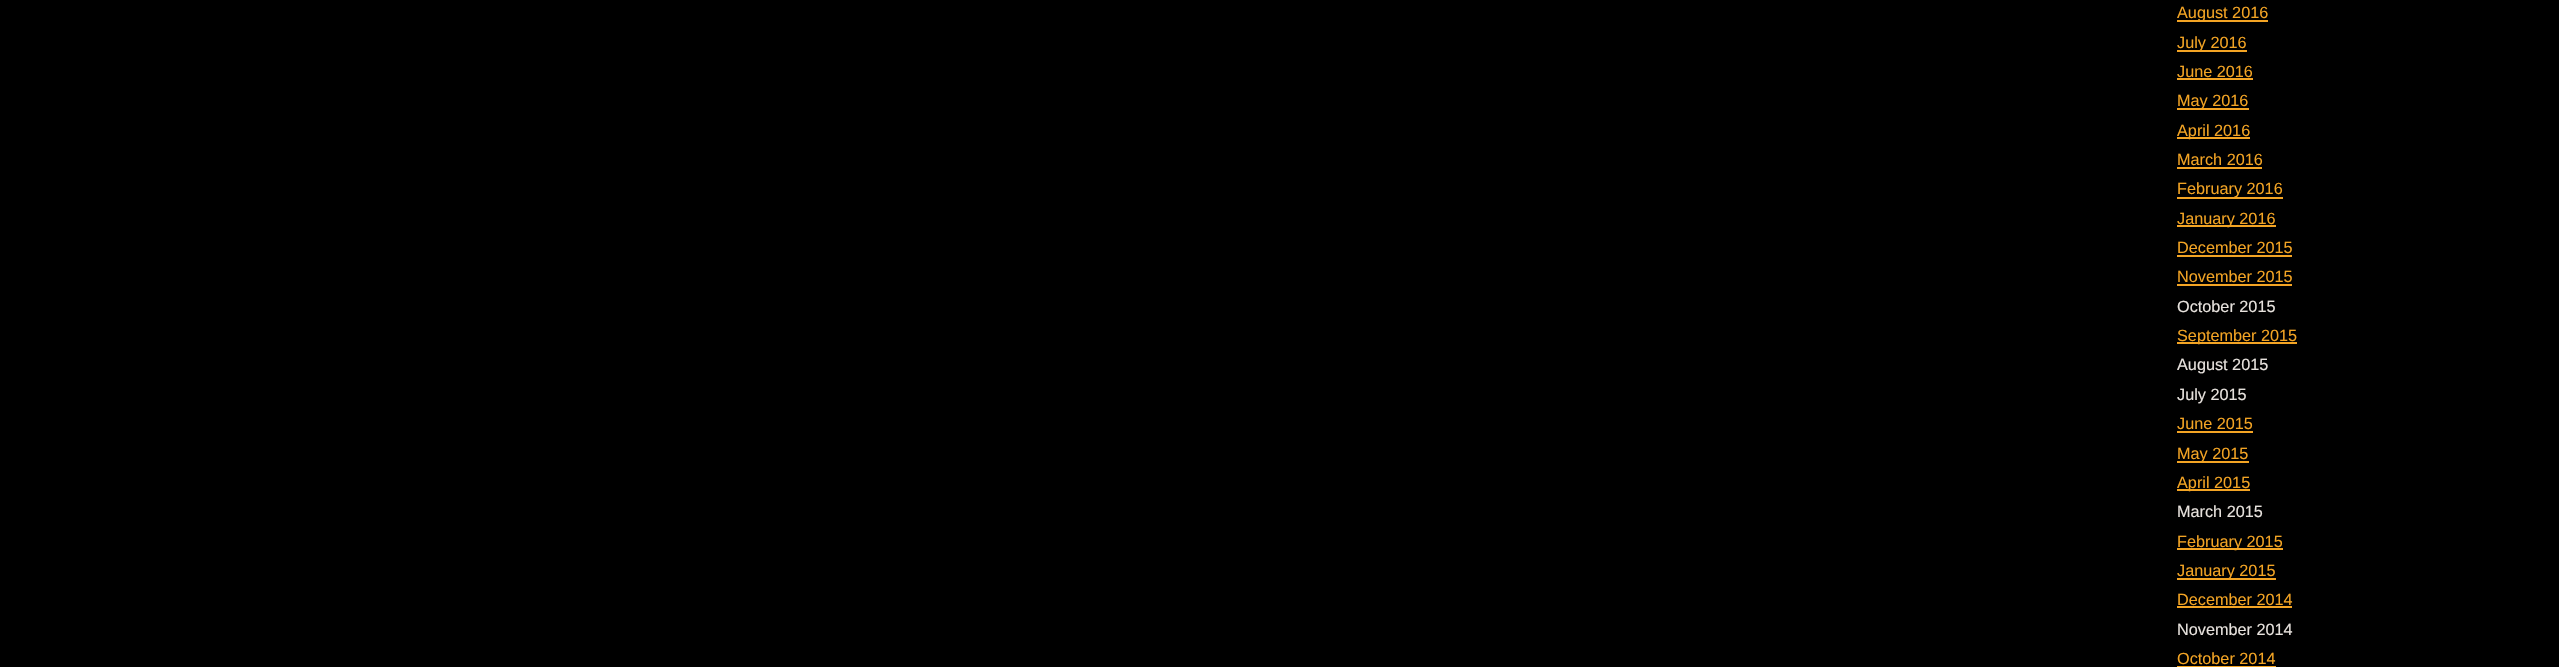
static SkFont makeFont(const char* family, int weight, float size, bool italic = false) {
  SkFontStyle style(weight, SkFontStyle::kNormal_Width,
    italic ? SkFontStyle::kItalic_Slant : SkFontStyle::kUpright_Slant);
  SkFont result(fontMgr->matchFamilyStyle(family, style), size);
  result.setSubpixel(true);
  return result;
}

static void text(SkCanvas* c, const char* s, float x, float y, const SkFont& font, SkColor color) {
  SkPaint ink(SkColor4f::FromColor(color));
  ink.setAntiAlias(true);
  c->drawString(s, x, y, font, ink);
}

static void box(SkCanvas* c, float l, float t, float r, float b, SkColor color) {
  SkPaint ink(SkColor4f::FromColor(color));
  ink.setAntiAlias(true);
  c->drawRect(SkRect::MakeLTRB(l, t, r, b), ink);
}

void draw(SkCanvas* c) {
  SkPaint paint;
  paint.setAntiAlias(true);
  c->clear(0xff000000);
  box(c, 2177, 20, 2268, 22, 0xfff3a424);
  SkFont face1 = makeFont("Liberation Sans", 400, 16.25f);
  text(c, "August 2016", 2177, 18, face1, 0xfff3a424);
  box(c, 2177, 50, 2247, 52, 0xfff3a424);
  text(c, "July 2016", 2177, 48, face1, 0xfff3a424);
  text(c, "June 2016", 2177, 77, face1, 0xfff3a424);
  box(c, 2177, 78, 2253, 80, 0xfff3a424);
  box(c, 2177, 108, 2249, 110, 0xfff3a424);
  text(c, "May 2016", 2177, 106, face1, 0xfff3a424);
  box(c, 2177, 137, 2250, 139, 0xfff3a424);
  text(c, "April 2016", 2177, 136, face1, 0xfff3a424);
  text(c, "March 2016", 2177, 165, face1, 0xfff3a424);
  box(c, 2177, 167, 2262, 169, 0xfff3a424);
  box(c, 2177, 197, 2283, 199, 0xfff3a424);
  text(c, "February 2016", 2177, 194, face1, 0xfff3a424);
  box(c, 2177, 225, 2276, 227, 0xfff3a424);
  text(c, "January 2016", 2177, 224, face1, 0xfff3a424);
  text(c, "December 2015", 2177, 253, face1, 0xfff3a424);
  box(c, 2177, 255, 2292, 257, 0xfff3a424);
  text(c, "November 2015", 2177, 282, face1, 0xfff3a424);
  box(c, 2177, 284, 2292, 286, 0xfff3a424);
  text(c, "October 2015", 2177, 312, face1, 0xffe7e2dd);
  box(c, 2177, 342, 2297, 344, 0xfff3a424);
  text(c, "September 2015", 2177, 341, face1, 0xfff3a424);
  text(c, "August 2015", 2177, 370, face1, 0xffe7e2dd);
  text(c, "July 2015", 2177, 400, face1, 0xffe7e2dd);
  text(c, "June 2015", 2177, 429, face1, 0xfff3a424);
  box(c, 2177, 431, 2253, 433, 0xfff3a424);
  box(c, 2177, 461, 2249, 463, 0xfff3a424);
  text(c, "May 2015", 2177, 459, face1, 0xfff3a424);
  box(c, 2177, 489, 2250, 491, 0xfff3a424);
  text(c, "April 2015", 2177, 488, face1, 0xfff3a424);
  text(c, "March 2015", 2177, 517, face1, 0xffe7e2dd);
  box(c, 2177, 548, 2283, 550, 0xfff3a424);
  text(c, "February 2015", 2177, 547, face1, 0xfff3a424);
  box(c, 2177, 578, 2276, 580, 0xfff3a424);
  text(c, "January 2015", 2177, 576, face1, 0xfff3a424);
  text(c, "December 2014", 2177, 605, face1, 0xfff3a424);
  box(c, 2177, 606, 2292, 608, 0xfff3a424);
  text(c, "November 2014", 2177, 635, face1, 0xffe7e2dd);
  text(c, "October 2014", 2177, 664, face1, 0xfff3a424);
  box(c, 2177, 666, 2276, 667, 0xfff3a424);
}
